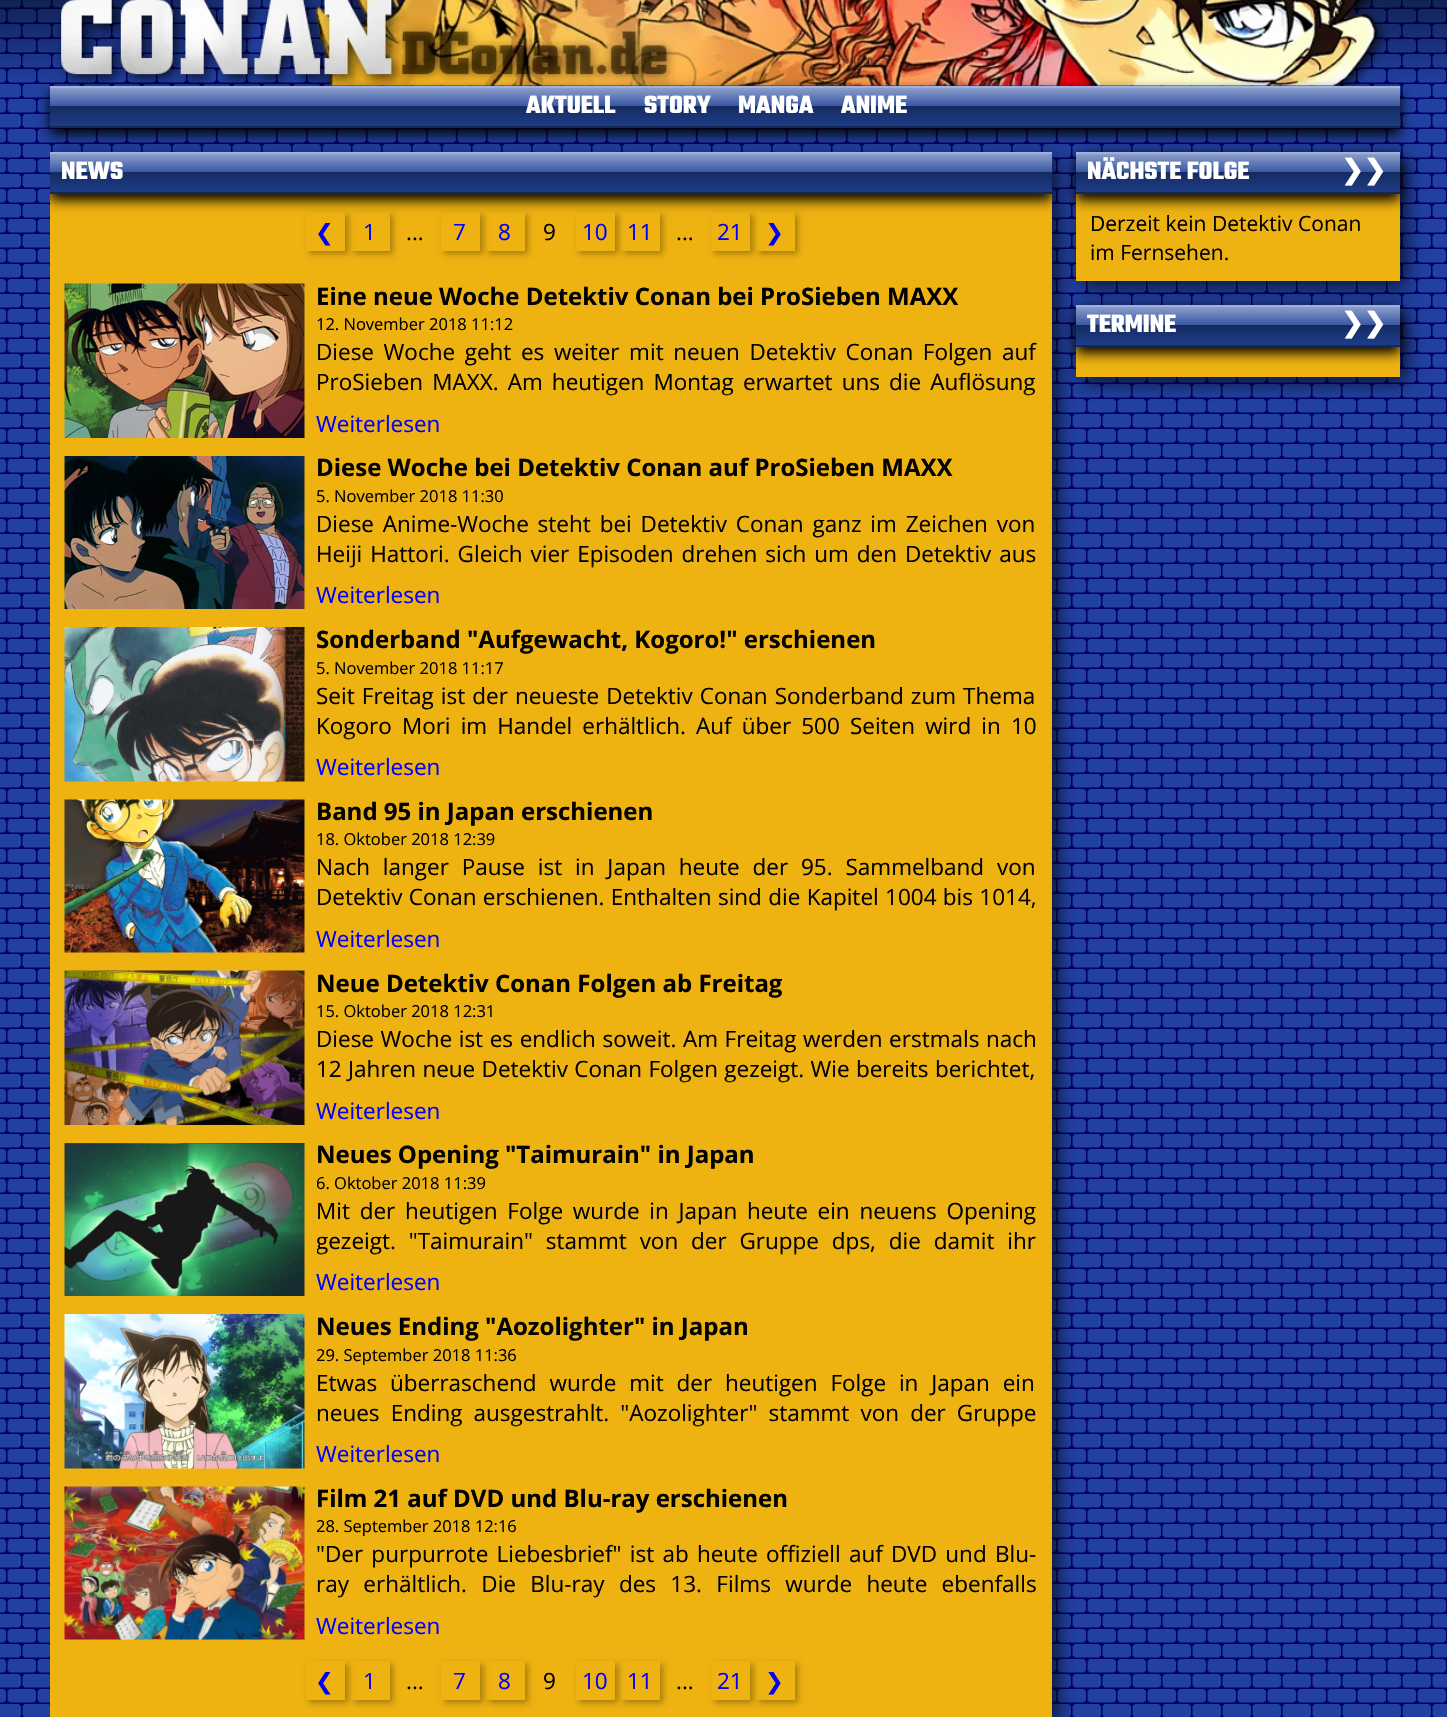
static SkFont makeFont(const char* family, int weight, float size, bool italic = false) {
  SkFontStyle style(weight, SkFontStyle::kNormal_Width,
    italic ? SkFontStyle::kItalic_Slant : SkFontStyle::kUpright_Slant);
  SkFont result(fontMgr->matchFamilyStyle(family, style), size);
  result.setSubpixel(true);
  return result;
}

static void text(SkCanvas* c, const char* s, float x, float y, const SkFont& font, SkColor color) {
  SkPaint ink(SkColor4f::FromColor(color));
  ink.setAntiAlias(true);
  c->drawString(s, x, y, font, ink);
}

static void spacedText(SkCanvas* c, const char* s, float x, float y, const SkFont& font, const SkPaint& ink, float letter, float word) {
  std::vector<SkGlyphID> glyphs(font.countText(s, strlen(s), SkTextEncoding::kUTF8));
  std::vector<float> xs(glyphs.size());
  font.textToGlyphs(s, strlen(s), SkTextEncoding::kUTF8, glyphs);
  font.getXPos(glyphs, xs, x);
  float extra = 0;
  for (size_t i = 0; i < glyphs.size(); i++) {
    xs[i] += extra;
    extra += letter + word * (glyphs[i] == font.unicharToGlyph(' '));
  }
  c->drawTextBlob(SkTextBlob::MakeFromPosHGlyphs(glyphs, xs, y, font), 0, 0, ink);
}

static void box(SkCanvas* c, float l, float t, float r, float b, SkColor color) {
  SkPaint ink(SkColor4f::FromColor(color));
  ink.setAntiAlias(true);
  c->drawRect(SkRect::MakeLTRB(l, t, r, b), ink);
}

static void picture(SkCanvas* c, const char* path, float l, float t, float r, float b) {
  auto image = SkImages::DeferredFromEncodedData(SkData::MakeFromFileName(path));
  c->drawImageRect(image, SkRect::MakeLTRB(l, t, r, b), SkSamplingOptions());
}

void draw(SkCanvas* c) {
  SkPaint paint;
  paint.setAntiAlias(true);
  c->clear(0xffffffff);
  picture(c, "img_01.png", 0, 0, 1447, 1717);
  picture(c, "img_02.png", 56, 0, 1390, 86);
  paint.setColor(0xff000000);
  paint.setMaskFilter(SkMaskFilter::MakeBlur(kNormal_SkBlurStyle, 6));
  c->drawRect(SkRect::MakeLTRB(50, 92, 1400, 134), paint);
  paint.setMaskFilter(nullptr);
  {
    const SkColor colors[] = {0xff90a1cb, 0xff3756a3, 0xff152b60, 0xff1e3d89};
    const float stops[] = {0, 0.5f, 0.5f, 1};
    const SkPoint ends[] = {{725, 87}, {725, 126}};
    paint.setShader(SkGradientShader::MakeLinear(ends, colors, stops, 4, SkTileMode::kClamp));
    paint.setAlpha(255);
  }
  c->drawRect(SkRect::MakeLTRB(50, 88, 1400, 126), paint);
  box(c, 50, 86, 1400, 88, 0xff9eb0df);
  box(c, 50, 126, 1400, 128, 0xff142856);
  SkFont face1 = makeFont("Teko", 700, 27);
  text(c, "AKTUELL", 526, 113, face1, 0xffffffff);
  text(c, "STORY", 644, 113, face1, 0xffffffff);
  text(c, "MANGA", 738, 113, face1, 0xffffffff);
  text(c, "ANIME", 841, 113, face1, 0xffffffff);
  paint.setShader(nullptr);
  paint.setColor(0xab000000);
  paint.setMaskFilter(SkMaskFilter::MakeBlur(kNormal_SkBlurStyle, 9));
  c->drawRect(SkRect::MakeLTRB(1082, 158, 1406, 287), paint);
  paint.setMaskFilter(nullptr);
  box(c, 1076, 194, 1400, 281, 0xffeeb211);
  paint.setMaskFilter(SkMaskFilter::MakeBlur(kNormal_SkBlurStyle, 9));
  c->drawRect(SkRect::MakeLTRB(1082, 311, 1406, 383), paint);
  paint.setMaskFilter(nullptr);
  box(c, 1076, 347, 1400, 377, 0xffeeb211);
  c->save();
  c->clipRect(SkRect::MakeLTRB(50, 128, 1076, 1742));
  paint.setMaskFilter(SkMaskFilter::MakeBlur(kNormal_SkBlurStyle, 9));
  c->drawRect(SkRect::MakeLTRB(56, 158, 1058, 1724), paint);
  paint.setMaskFilter(nullptr);
  c->restore();
  box(c, 50, 194, 1052, 1717, 0xffeeb211);
  c->save();
  c->clipRect(SkRect::MakeLTRB(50, 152, 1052, 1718));
  paint.setColor(0xff000000);
  paint.setMaskFilter(SkMaskFilter::MakeBlur(kNormal_SkBlurStyle, 6));
  c->drawRect(SkRect::MakeLTRB(50, 158, 1052, 200), paint);
  paint.setMaskFilter(nullptr);
  c->restore();
  {
    const SkColor colors[] = {0xff90a1cb, 0xff3756a3, 0xff152b60, 0xff1e3d89};
    const float stops[] = {0, 0.5f, 0.5f, 1};
    const SkPoint ends[] = {{551, 153}, {551, 192}};
    paint.setShader(SkGradientShader::MakeLinear(ends, colors, stops, 4, SkTileMode::kClamp));
    paint.setAlpha(255);
  }
  c->drawRect(SkRect::MakeLTRB(50, 154, 1052, 192), paint);
  box(c, 50, 152, 1052, 154, 0xff9eb0df);
  box(c, 50, 192, 1052, 194, 0xff142856);
  text(c, "NEWS", 61, 179, face1, 0xffffffff);
  c->save();
  c->clipPath(SkPathBuilder(SkPathFillType::kEvenOdd).moveTo(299, 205).lineTo(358, 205).lineTo(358, 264).lineTo(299, 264).close().moveTo(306, 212).lineTo(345, 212).lineTo(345, 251).lineTo(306, 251).close().detach(), true);
  paint.setShader(nullptr);
  paint.setColor(0x4d000000);
  paint.setMaskFilter(SkMaskFilter::MakeBlur(kNormal_SkBlurStyle, 3));
  c->drawRect(SkRect::MakeLTRB(309, 215, 348, 254), paint);
  paint.setMaskFilter(nullptr);
  c->restore();
  SkFont face2 = makeFont("DejaVu Sans", 400, 22.5f);
  text(c, "❮", 315, 240, face2, 0xff0000ff);
  c->save();
  c->clipPath(SkPathBuilder(SkPathFillType::kEvenOdd).moveTo(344, 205).lineTo(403, 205).lineTo(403, 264).lineTo(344, 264).close().moveTo(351, 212).lineTo(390, 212).lineTo(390, 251).lineTo(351, 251).close().detach(), true);
  paint.setMaskFilter(SkMaskFilter::MakeBlur(kNormal_SkBlurStyle, 3));
  c->drawRect(SkRect::MakeLTRB(354, 215, 393, 254), paint);
  paint.setMaskFilter(nullptr);
  c->restore();
  SkFont face3 = makeFont("Open Sans", 400, 22.5f);
  text(c, "1", 363, 240, face3, 0xff0000ff);
  text(c, "...", 406, 240, face3, 0xff000000);
  c->save();
  c->clipPath(SkPathBuilder(SkPathFillType::kEvenOdd).moveTo(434, 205).lineTo(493, 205).lineTo(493, 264).lineTo(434, 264).close().moveTo(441, 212).lineTo(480, 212).lineTo(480, 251).lineTo(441, 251).close().detach(), true);
  paint.setMaskFilter(SkMaskFilter::MakeBlur(kNormal_SkBlurStyle, 3));
  c->drawRect(SkRect::MakeLTRB(444, 215, 483, 254), paint);
  paint.setMaskFilter(nullptr);
  c->restore();
  text(c, "7", 453, 240, face3, 0xff0000ff);
  c->save();
  c->clipPath(SkPathBuilder(SkPathFillType::kEvenOdd).moveTo(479, 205).lineTo(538, 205).lineTo(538, 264).lineTo(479, 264).close().moveTo(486, 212).lineTo(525, 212).lineTo(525, 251).lineTo(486, 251).close().detach(), true);
  paint.setMaskFilter(SkMaskFilter::MakeBlur(kNormal_SkBlurStyle, 3));
  c->drawRect(SkRect::MakeLTRB(489, 215, 528, 254), paint);
  paint.setMaskFilter(nullptr);
  c->restore();
  text(c, "8", 498, 240, face3, 0xff0000ff);
  text(c, "9", 543, 240, face3, 0xff000000);
  c->save();
  c->clipPath(SkPathBuilder(SkPathFillType::kEvenOdd).moveTo(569, 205).lineTo(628, 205).lineTo(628, 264).lineTo(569, 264).close().moveTo(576, 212).lineTo(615, 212).lineTo(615, 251).lineTo(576, 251).close().detach(), true);
  paint.setMaskFilter(SkMaskFilter::MakeBlur(kNormal_SkBlurStyle, 3));
  c->drawRect(SkRect::MakeLTRB(579, 215, 618, 254), paint);
  paint.setMaskFilter(nullptr);
  c->restore();
  text(c, "10", 582, 240, face3, 0xff0000ff);
  c->save();
  c->clipPath(SkPathBuilder(SkPathFillType::kEvenOdd).moveTo(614, 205).lineTo(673, 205).lineTo(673, 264).lineTo(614, 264).close().moveTo(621, 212).lineTo(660, 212).lineTo(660, 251).lineTo(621, 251).close().detach(), true);
  paint.setMaskFilter(SkMaskFilter::MakeBlur(kNormal_SkBlurStyle, 3));
  c->drawRect(SkRect::MakeLTRB(624, 215, 663, 254), paint);
  paint.setMaskFilter(nullptr);
  c->restore();
  text(c, "11", 627, 240, face3, 0xff0000ff);
  text(c, "...", 676, 240, face3, 0xff000000);
  c->save();
  c->clipPath(SkPathBuilder(SkPathFillType::kEvenOdd).moveTo(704, 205).lineTo(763, 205).lineTo(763, 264).lineTo(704, 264).close().moveTo(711, 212).lineTo(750, 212).lineTo(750, 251).lineTo(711, 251).close().detach(), true);
  paint.setMaskFilter(SkMaskFilter::MakeBlur(kNormal_SkBlurStyle, 3));
  c->drawRect(SkRect::MakeLTRB(714, 215, 753, 254), paint);
  paint.setMaskFilter(nullptr);
  c->restore();
  text(c, "21", 717, 240, face3, 0xff0000ff);
  c->save();
  c->clipPath(SkPathBuilder(SkPathFillType::kEvenOdd).moveTo(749, 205).lineTo(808, 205).lineTo(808, 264).lineTo(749, 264).close().moveTo(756, 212).lineTo(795, 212).lineTo(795, 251).lineTo(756, 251).close().detach(), true);
  paint.setMaskFilter(SkMaskFilter::MakeBlur(kNormal_SkBlurStyle, 3));
  c->drawRect(SkRect::MakeLTRB(759, 215, 798, 254), paint);
  paint.setMaskFilter(nullptr);
  c->restore();
  text(c, "❯", 765, 240, face2, 0xff0000ff);
  picture(c, "img_03.png", 64, 283, 305, 438);
  SkFont face4 = makeFont("Open Sans", 700, 24);
  text(c, "Eine neue Woche Detektiv Conan bei ProSieben MAXX", 316, 305, face4, 0xff000000);
  SkFont face5 = makeFont("Open Sans", 400, 16.5f);
  text(c, "12. November 2018 11:12", 316, 330, face5, 0xff000000);
  paint.setColor(0xff000000);
  spacedText(c, "Diese Woche geht es weiter mit neuen Detektiv Conan Folgen auf", 316, 360, face3, paint, 0, 3.75f);
  spacedText(c, "ProSieben MAXX. Am heutigen Montag erwartet uns die Auflösung", 316, 390, face3, paint, 0, 3.25f);
  {
    const SkColor colors[] = {0x00eeb211, 0xffeeb211};
    const float stops[] = {0.5f, 0.8f};
    const SkPoint ends[] = {{677, 369}, {677, 414}};
    paint.setShader(SkGradientShader::MakeLinear(ends, colors, stops, 2, SkTileMode::kClamp));
    paint.setAlpha(255);
  }
  c->drawRect(SkRect::MakeLTRB(606, 392, 1035, 396), paint);
  text(c, "Weiterlesen", 316, 432, face3, 0xff0000ff);
  picture(c, "img_04.png", 64, 456, 305, 609);
  text(c, "Diese Woche bei Detektiv Conan auf ProSieben MAXX", 316, 476, face4, 0xff000000);
  text(c, "5. November 2018 11:30", 316, 502, face5, 0xff000000);
  paint.setShader(nullptr);
  paint.setColor(0xff000000);
  spacedText(c, "Diese Anime-Woche steht bei Detektiv Conan ganz im Zeichen von", 316, 532, face3, paint, 0, 3);
  spacedText(c, "Heiji Hattori. Gleich vier Episoden drehen sich um den Detektiv aus", 316, 562, face3, paint, 0, 2.1f);
  {
    const SkColor colors[] = {0x00eeb211, 0xffeeb211};
    const float stops[] = {0.5f, 0.8f};
    const SkPoint ends[] = {{677, 541}, {677, 587}};
    paint.setShader(SkGradientShader::MakeLinear(ends, colors, stops, 2, SkTileMode::kClamp));
    paint.setAlpha(255);
  }
  c->drawRect(SkRect::MakeLTRB(349, 564, 594, 568), paint);
  text(c, "Weiterlesen", 316, 603, face3, 0xff0000ff);
  picture(c, "img_05.png", 64, 627, 305, 782);
  c->save();
  c->clipRect(SkRect::MakeLTRB(317, 627, 1037, 752));
  text(c, "Sonderband \"Aufgewacht, Kogoro!\" erschienen", 316, 648, face4, 0xff000000);
  c->restore();
  text(c, "5. November 2018 11:17", 316, 674, face5, 0xff000000);
  paint.setShader(nullptr);
  paint.setColor(0xff000000);
  spacedText(c, "Seit Freitag ist der neueste Detektiv Conan Sonderband zum Thema", 316, 704, face3, paint, 0, 1.25f);
  spacedText(c, "Kogoro Mori im Handel erhältlich. Auf über 500 Seiten wird in 10", 316, 734, face3, paint, 0, 4.25f);
  {
    const SkColor colors[] = {0x00eeb211, 0xffeeb211};
    const float stops[] = {0.5f, 0.8f};
    const SkPoint ends[] = {{677, 712}, {677, 758}};
    paint.setShader(SkGradientShader::MakeLinear(ends, colors, stops, 2, SkTileMode::kClamp));
    paint.setAlpha(255);
  }
  c->drawRect(SkRect::MakeLTRB(343, 735, 355, 740), paint);
  text(c, "Weiterlesen", 316, 775, face3, 0xff0000ff);
  picture(c, "img_06.png", 64, 799, 305, 953);
  text(c, "Band 95 in Japan erschienen", 316, 820, face4, 0xff000000);
  text(c, "18. Oktober 2018 12:39", 316, 845, face5, 0xff000000);
  paint.setShader(nullptr);
  paint.setColor(0xff000000);
  spacedText(c, "Nach langer Pause ist in Japan heute der 95. Sammelband von", 316, 875, face3, paint, 0, 7);
  spacedText(c, "Detektiv Conan erschienen. Enthalten sind die Kapitel 1004 bis 1014,", 316, 905, face3, paint, 0, 0.5f);
  {
    const SkColor colors[] = {0x00eeb211, 0xffeeb211};
    const float stops[] = {0.5f, 0.8f};
    const SkPoint ends[] = {{677, 885}, {677, 930}};
    paint.setShader(SkGradientShader::MakeLinear(ends, colors, stops, 2, SkTileMode::kClamp));
    paint.setAlpha(255);
  }
  c->drawRect(SkRect::MakeLTRB(834, 908, 836, 911), paint);
  text(c, "Weiterlesen", 316, 947, face3, 0xff0000ff);
  picture(c, "img_07.png", 64, 970, 305, 1125);
  text(c, "Neue Detektiv Conan Folgen ab Freitag", 316, 992, face4, 0xff000000);
  text(c, "15. Oktober 2018 12:31", 316, 1017, face5, 0xff000000);
  paint.setShader(nullptr);
  paint.setColor(0xff000000);
  spacedText(c, "Diese Woche ist es endlich soweit. Am Freitag werden erstmals nach", 316, 1047, face3, paint, 0, 0.75f);
  spacedText(c, "12 Jahren neue Detektiv Conan Folgen gezeigt. Wie bereits berichtet,", 316, 1077, face3, paint, 0, 0.5f);
  {
    const SkColor colors[] = {0x00eeb211, 0xffeeb211};
    const float stops[] = {0.5f, 0.8f};
    const SkPoint ends[] = {{677, 1056}, {677, 1101}};
    paint.setShader(SkGradientShader::MakeLinear(ends, colors, stops, 2, SkTileMode::kClamp));
    paint.setAlpha(255);
  }
  c->drawRect(SkRect::MakeLTRB(346, 1079, 1033, 1083), paint);
  text(c, "Weiterlesen", 316, 1119, face3, 0xff0000ff);
  picture(c, "img_08.png", 64, 1143, 305, 1296);
  text(c, "Neues Opening \"Taimurain\" in Japan", 316, 1163, face4, 0xff000000);
  c->save();
  c->clipRect(SkRect::MakeLTRB(317, 1143, 1037, 1266));
  text(c, "6. Oktober 2018 11:39", 316, 1189, face5, 0xff000000);
  c->restore();
  paint.setShader(nullptr);
  paint.setColor(0xff000000);
  spacedText(c, "Mit der heutigen Folge wurde in Japan heute ein neuens Opening", 316, 1219, face3, paint, 0, 3.9f);
  c->save();
  c->clipRect(SkRect::MakeLTRB(317, 1143, 1037, 1266));
  spacedText(c, "gezeigt. \"Taimurain\" stammt von der Gruppe dps, die damit ihr", 316, 1249, face3, paint, 0, 7);
  c->restore();
  {
    const SkColor colors[] = {0x00eeb211, 0xffeeb211};
    const float stops[] = {0.5f, 0.8f};
    const SkPoint ends[] = {{677, 1229}, {677, 1274}};
    paint.setShader(SkGradientShader::MakeLinear(ends, colors, stops, 2, SkTileMode::kClamp));
    paint.setAlpha(255);
  }
  c->drawRect(SkRect::MakeLTRB(317, 1252, 850, 1255), paint);
  text(c, "Weiterlesen", 316, 1290, face3, 0xff0000ff);
  picture(c, "img_09.png", 64, 1314, 305, 1469);
  text(c, "Neues Ending \"Aozolighter\" in Japan", 316, 1335, face4, 0xff000000);
  c->save();
  c->clipRect(SkRect::MakeLTRB(317, 1314, 1037, 1439));
  text(c, "29. September 2018 11:36", 316, 1361, face5, 0xff000000);
  c->restore();
  paint.setShader(nullptr);
  paint.setColor(0xff000000);
  spacedText(c, "Etwas überraschend wurde mit der heutigen Folge in Japan ein", 316, 1391, face3, paint, 0, 7);
  spacedText(c, "neues Ending ausgestrahlt. \"Aozolighter\" stammt von der Gruppe", 316, 1421, face3, paint, 0, 5.25f);
  {
    const SkColor colors[] = {0x00eeb211, 0xffeeb211};
    const float stops[] = {0.5f, 0.8f};
    const SkPoint ends[] = {{677, 1400}, {677, 1445}};
    paint.setShader(SkGradientShader::MakeLinear(ends, colors, stops, 2, SkTileMode::kClamp));
    paint.setAlpha(255);
  }
  c->drawRect(SkRect::MakeLTRB(450, 1423, 1014, 1427), paint);
  text(c, "Weiterlesen", 316, 1462, face3, 0xff0000ff);
  picture(c, "img_10.png", 64, 1486, 305, 1640);
  text(c, "Film 21 auf DVD und Blu-ray erschienen", 316, 1507, face4, 0xff000000);
  c->save();
  c->clipRect(SkRect::MakeLTRB(317, 1487, 1037, 1610));
  text(c, "28. September 2018 12:16", 316, 1532, face5, 0xff000000);
  c->restore();
  paint.setShader(nullptr);
  paint.setColor(0xff000000);
  spacedText(c, "\"Der purpurrote Liebesbrief\" ist ab heute offiziell auf DVD und Blu-", 316, 1562, face3, paint, 0, 2.4f);
  spacedText(c, "ray erhältlich. Die Blu-ray des 13. Films wurde heute ebenfalls", 316, 1592, face3, paint, 0, 8.5f);
  {
    const SkColor colors[] = {0x00eeb211, 0xffeeb211};
    const float stops[] = {0.5f, 0.8f};
    const SkPoint ends[] = {{677, 1572}, {677, 1617}};
    paint.setShader(SkGradientShader::MakeLinear(ends, colors, stops, 2, SkTileMode::kClamp));
    paint.setAlpha(255);
  }
  c->drawRect(SkRect::MakeLTRB(337, 1595, 598, 1598), paint);
  text(c, "Weiterlesen", 316, 1634, face3, 0xff0000ff);
  c->save();
  c->clipPath(SkPathBuilder(SkPathFillType::kEvenOdd).moveTo(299, 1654).lineTo(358, 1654).lineTo(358, 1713).lineTo(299, 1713).close().moveTo(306, 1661).lineTo(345, 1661).lineTo(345, 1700).lineTo(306, 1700).close().detach(), true);
  paint.setShader(nullptr);
  paint.setColor(0x4d000000);
  paint.setMaskFilter(SkMaskFilter::MakeBlur(kNormal_SkBlurStyle, 3));
  c->drawRect(SkRect::MakeLTRB(309, 1664, 348, 1703), paint);
  paint.setMaskFilter(nullptr);
  c->restore();
  text(c, "❮", 315, 1689, face2, 0xff0000ff);
  c->save();
  c->clipPath(SkPathBuilder(SkPathFillType::kEvenOdd).moveTo(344, 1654).lineTo(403, 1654).lineTo(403, 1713).lineTo(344, 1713).close().moveTo(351, 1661).lineTo(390, 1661).lineTo(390, 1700).lineTo(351, 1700).close().detach(), true);
  paint.setMaskFilter(SkMaskFilter::MakeBlur(kNormal_SkBlurStyle, 3));
  c->drawRect(SkRect::MakeLTRB(354, 1664, 393, 1703), paint);
  paint.setMaskFilter(nullptr);
  c->restore();
  text(c, "1", 363, 1689, face3, 0xff0000ff);
  text(c, "...", 406, 1689, face3, 0xff000000);
  c->save();
  c->clipPath(SkPathBuilder(SkPathFillType::kEvenOdd).moveTo(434, 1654).lineTo(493, 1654).lineTo(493, 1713).lineTo(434, 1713).close().moveTo(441, 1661).lineTo(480, 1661).lineTo(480, 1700).lineTo(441, 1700).close().detach(), true);
  paint.setMaskFilter(SkMaskFilter::MakeBlur(kNormal_SkBlurStyle, 3));
  c->drawRect(SkRect::MakeLTRB(444, 1664, 483, 1703), paint);
  paint.setMaskFilter(nullptr);
  c->restore();
  text(c, "7", 453, 1689, face3, 0xff0000ff);
  c->save();
  c->clipPath(SkPathBuilder(SkPathFillType::kEvenOdd).moveTo(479, 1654).lineTo(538, 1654).lineTo(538, 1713).lineTo(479, 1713).close().moveTo(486, 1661).lineTo(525, 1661).lineTo(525, 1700).lineTo(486, 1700).close().detach(), true);
  paint.setMaskFilter(SkMaskFilter::MakeBlur(kNormal_SkBlurStyle, 3));
  c->drawRect(SkRect::MakeLTRB(489, 1664, 528, 1703), paint);
  paint.setMaskFilter(nullptr);
  c->restore();
  text(c, "8", 498, 1689, face3, 0xff0000ff);
  text(c, "9", 543, 1689, face3, 0xff000000);
  c->save();
  c->clipPath(SkPathBuilder(SkPathFillType::kEvenOdd).moveTo(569, 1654).lineTo(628, 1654).lineTo(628, 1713).lineTo(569, 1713).close().moveTo(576, 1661).lineTo(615, 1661).lineTo(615, 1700).lineTo(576, 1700).close().detach(), true);
  paint.setMaskFilter(SkMaskFilter::MakeBlur(kNormal_SkBlurStyle, 3));
  c->drawRect(SkRect::MakeLTRB(579, 1664, 618, 1703), paint);
  paint.setMaskFilter(nullptr);
  c->restore();
  text(c, "10", 582, 1689, face3, 0xff0000ff);
  c->save();
  c->clipPath(SkPathBuilder(SkPathFillType::kEvenOdd).moveTo(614, 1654).lineTo(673, 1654).lineTo(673, 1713).lineTo(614, 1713).close().moveTo(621, 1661).lineTo(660, 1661).lineTo(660, 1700).lineTo(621, 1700).close().detach(), true);
  paint.setMaskFilter(SkMaskFilter::MakeBlur(kNormal_SkBlurStyle, 3));
  c->drawRect(SkRect::MakeLTRB(624, 1664, 663, 1703), paint);
  paint.setMaskFilter(nullptr);
  c->restore();
  text(c, "11", 627, 1689, face3, 0xff0000ff);
  text(c, "...", 676, 1689, face3, 0xff000000);
  c->save();
  c->clipPath(SkPathBuilder(SkPathFillType::kEvenOdd).moveTo(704, 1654).lineTo(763, 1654).lineTo(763, 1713).lineTo(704, 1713).close().moveTo(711, 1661).lineTo(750, 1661).lineTo(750, 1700).lineTo(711, 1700).close().detach(), true);
  paint.setMaskFilter(SkMaskFilter::MakeBlur(kNormal_SkBlurStyle, 3));
  c->drawRect(SkRect::MakeLTRB(714, 1664, 753, 1703), paint);
  paint.setMaskFilter(nullptr);
  c->restore();
  text(c, "21", 717, 1689, face3, 0xff0000ff);
  c->save();
  c->clipPath(SkPathBuilder(SkPathFillType::kEvenOdd).moveTo(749, 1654).lineTo(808, 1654).lineTo(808, 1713).lineTo(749, 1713).close().moveTo(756, 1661).lineTo(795, 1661).lineTo(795, 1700).lineTo(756, 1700).close().detach(), true);
  paint.setMaskFilter(SkMaskFilter::MakeBlur(kNormal_SkBlurStyle, 3));
  c->drawRect(SkRect::MakeLTRB(759, 1664, 798, 1703), paint);
  paint.setMaskFilter(nullptr);
  c->restore();
  text(c, "❯", 765, 1689, face2, 0xff0000ff);
  paint.setColor(0xff000000);
  paint.setMaskFilter(SkMaskFilter::MakeBlur(kNormal_SkBlurStyle, 6));
  c->drawRect(SkRect::MakeLTRB(1076, 158, 1400, 200), paint);
  paint.setMaskFilter(nullptr);
  {
    const SkColor colors[] = {0xff90a1cb, 0xff3756a3, 0xff152b60, 0xff1e3d89};
    const float stops[] = {0, 0.5f, 0.5f, 1};
    const SkPoint ends[] = {{1238, 153}, {1238, 192}};
    paint.setShader(SkGradientShader::MakeLinear(ends, colors, stops, 4, SkTileMode::kClamp));
    paint.setAlpha(255);
  }
  c->drawRect(SkRect::MakeLTRB(1076, 154, 1400, 192), paint);
  box(c, 1076, 152, 1400, 154, 0xff9eb0df);
  box(c, 1076, 192, 1400, 194, 0xff142856);
  text(c, "NÄCHSTE FOLGE", 1087, 179, face1, 0xffffffff);
  SkFont face6 = makeFont("DejaVu Sans", 700, 27);
  text(c, "❯❯", 1341, 179, face6, 0xffffffff);
  SkFont face7 = makeFont("Open Sans", 400, 21);
  text(c, "Derzeit kein Detektiv Conan", 1090, 231, face7, 0xff000000);
  text(c, "im Fernsehen.", 1090, 260, face7, 0xff000000);
  paint.setShader(nullptr);
  paint.setColor(0xff000000);
  paint.setMaskFilter(SkMaskFilter::MakeBlur(kNormal_SkBlurStyle, 6));
  c->drawRect(SkRect::MakeLTRB(1076, 311, 1400, 353), paint);
  paint.setMaskFilter(nullptr);
  {
    const SkColor colors[] = {0xff90a1cb, 0xff3756a3, 0xff152b60, 0xff1e3d89};
    const float stops[] = {0, 0.5f, 0.5f, 1};
    const SkPoint ends[] = {{1238, 306}, {1238, 345}};
    paint.setShader(SkGradientShader::MakeLinear(ends, colors, stops, 4, SkTileMode::kClamp));
    paint.setAlpha(255);
  }
  c->drawRect(SkRect::MakeLTRB(1076, 307, 1400, 345), paint);
  box(c, 1076, 305, 1400, 307, 0xff9eb0df);
  box(c, 1076, 345, 1400, 347, 0xff142856);
  text(c, "TERMINE", 1087, 332, face1, 0xffffffff);
  text(c, "❯❯", 1341, 332, face6, 0xffffffff);
}
